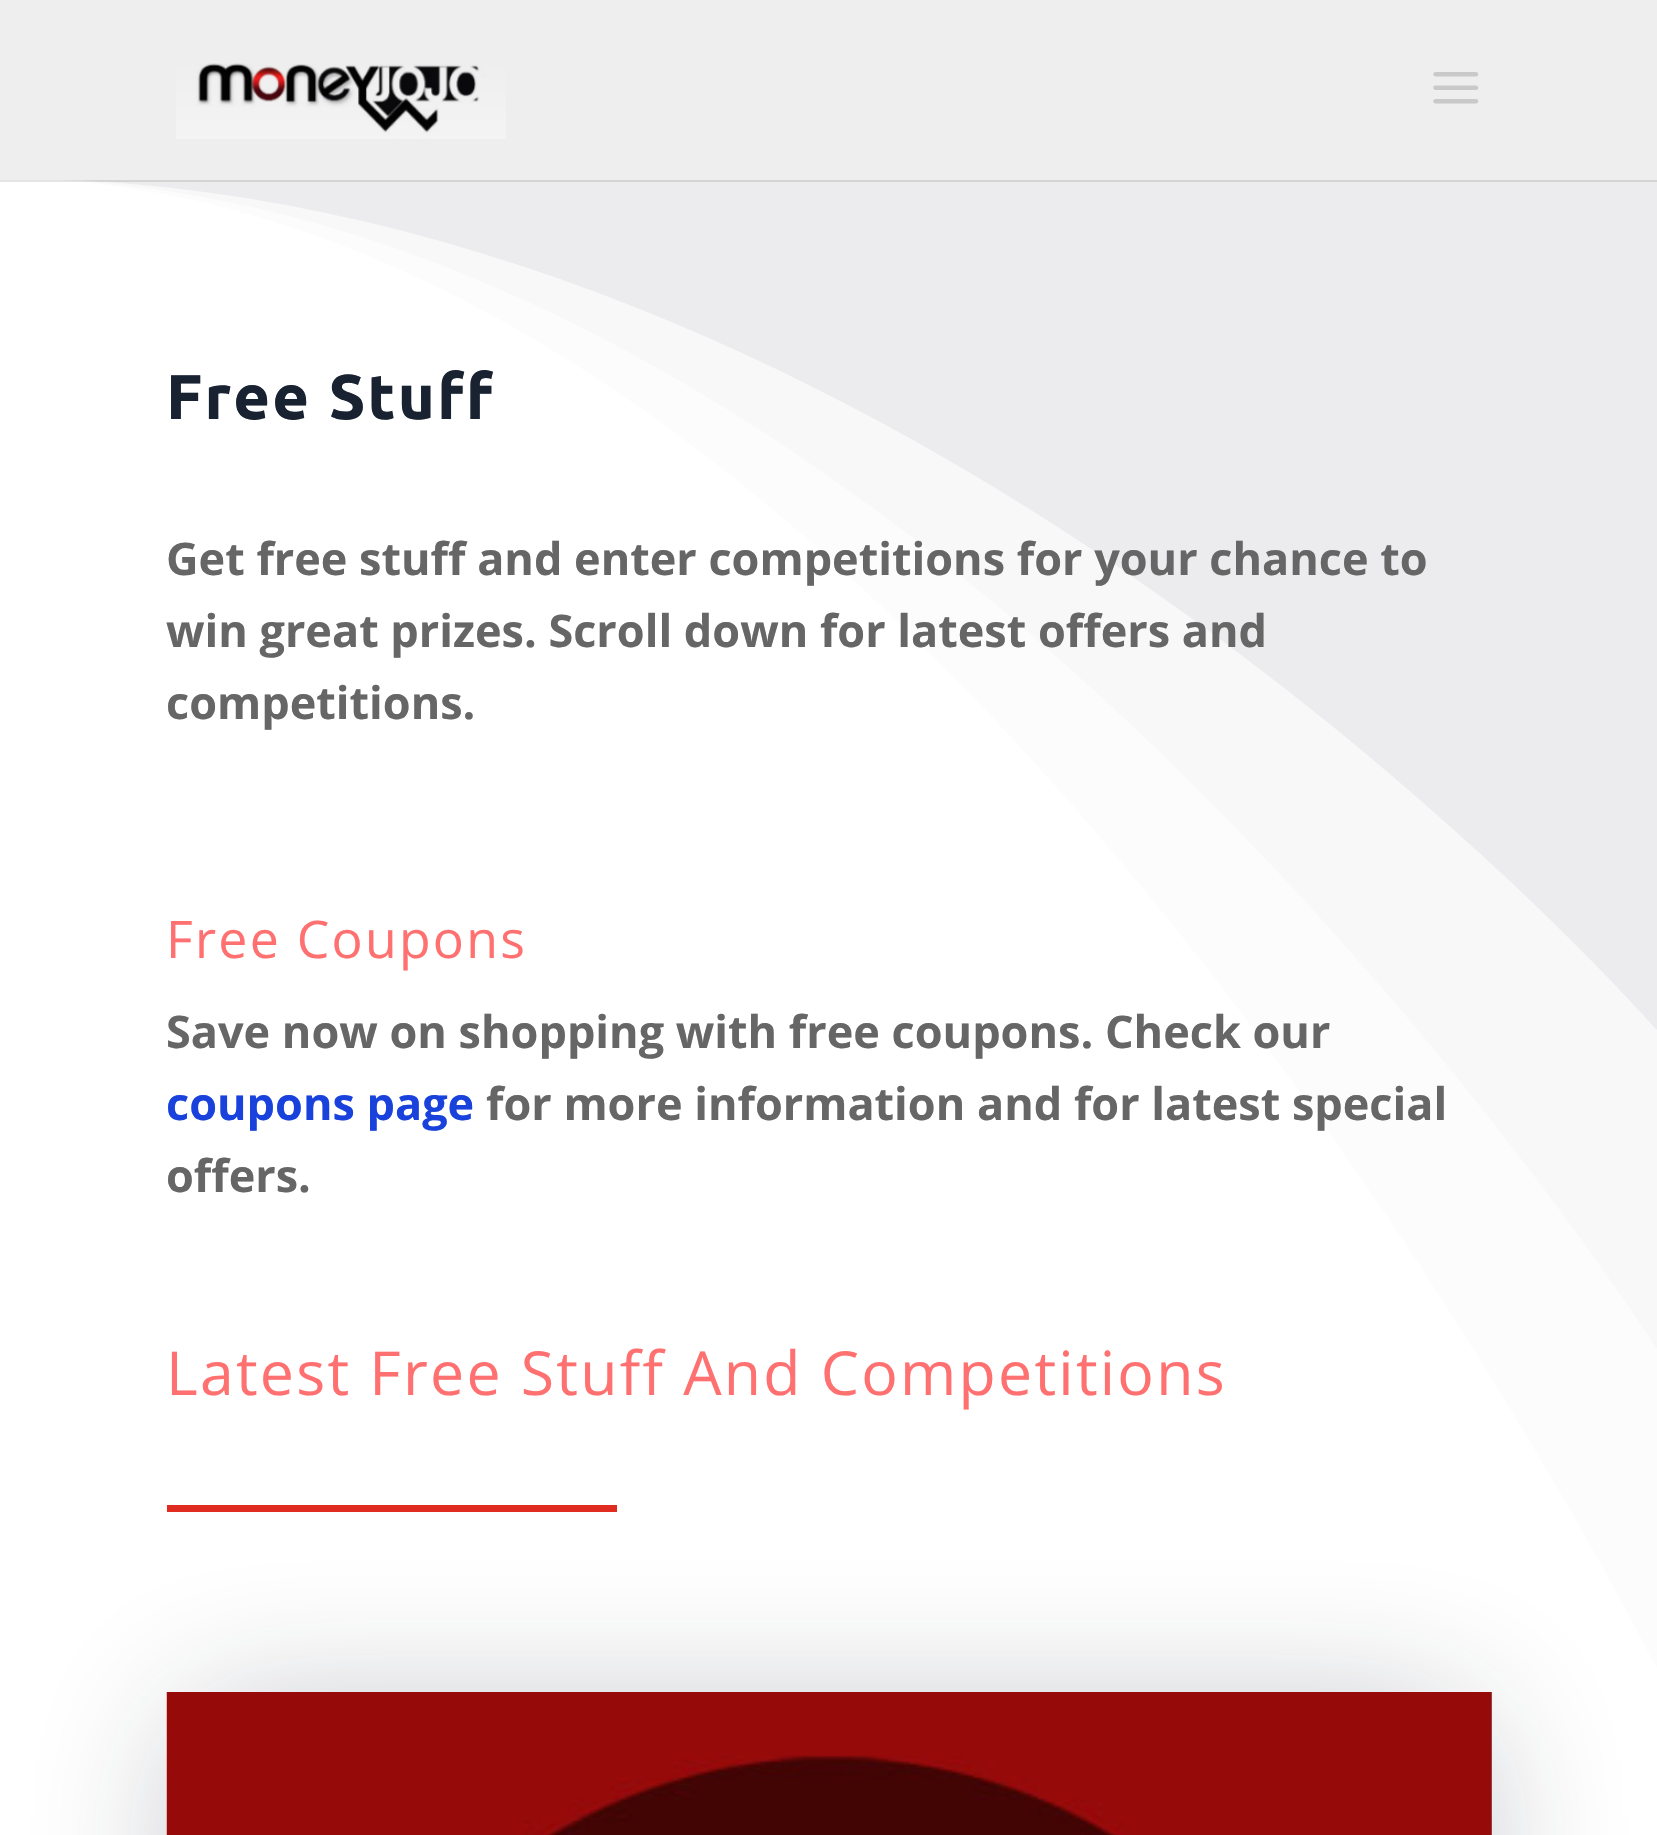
static SkFont makeFont(const char* family, int weight, float size, bool italic = false) {
  SkFontStyle style(weight, SkFontStyle::kNormal_Width,
    italic ? SkFontStyle::kItalic_Slant : SkFontStyle::kUpright_Slant);
  SkFont result(fontMgr->matchFamilyStyle(family, style), size);
  result.setSubpixel(true);
  return result;
}

static void text(SkCanvas* c, const char* s, float x, float y, const SkFont& font, SkColor color) {
  SkPaint ink(SkColor4f::FromColor(color));
  ink.setAntiAlias(true);
  c->drawString(s, x, y, font, ink);
}

static void spacedText(SkCanvas* c, const char* s, float x, float y, const SkFont& font, const SkPaint& ink, float letter, float word) {
  std::vector<SkGlyphID> glyphs(font.countText(s, strlen(s), SkTextEncoding::kUTF8));
  std::vector<float> xs(glyphs.size());
  font.textToGlyphs(s, strlen(s), SkTextEncoding::kUTF8, glyphs);
  font.getXPos(glyphs, xs, x);
  float extra = 0;
  for (size_t i = 0; i < glyphs.size(); i++) {
    xs[i] += extra;
    extra += letter + word * (glyphs[i] == font.unicharToGlyph(' '));
  }
  c->drawTextBlob(SkTextBlob::MakeFromPosHGlyphs(glyphs, xs, y, font), 0, 0, ink);
}

static void box(SkCanvas* c, float l, float t, float r, float b, SkColor color) {
  SkPaint ink(SkColor4f::FromColor(color));
  ink.setAntiAlias(true);
  c->drawRect(SkRect::MakeLTRB(l, t, r, b), ink);
}

static void picture(SkCanvas* c, const char* path, float l, float t, float r, float b) {
  auto image = SkImages::DeferredFromEncodedData(SkData::MakeFromFileName(path));
  c->drawImageRect(image, SkRect::MakeLTRB(l, t, r, b), SkSamplingOptions());
}

void draw(SkCanvas* c) {
  SkPaint paint;
  paint.setAntiAlias(true);
  c->clear(0xffffffff);
  paint.setColor(0xfffcfcfd);
  c->drawPath(SkPathBuilder().moveTo(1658, 178).lineTo(0, 178).cubicTo(916, 178, 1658, 1670, 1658, 1670).close().detach(), paint);
  paint.setColor(0xfff8f8f9);
  c->drawPath(SkPathBuilder().moveTo(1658, 178).lineTo(0, 178).cubicTo(916, 178, 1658, 1350, 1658, 1350).close().detach(), paint);
  paint.setColor(0xffececee);
  c->drawPath(SkPathBuilder().moveTo(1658, 178).lineTo(0, 178).cubicTo(916, 178, 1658, 1031, 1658, 1031).close().detach(), paint);
  box(c, 0, 180, 1657, 182, 0x1a000000);
  box(c, 0, 0, 1657, 180, 0xffeeeeee);
  picture(c, "img_01.png", 176, 63, 506, 139);
  picture(c, "img_02.png", 1433, 72, 1479, 104);
  SkFont face1 = makeFont("Ubuntu", 700, 63);
  paint.setColor(0xff192231);
  spacedText(c, "Free Stuff", 166, 419, face1, paint, 2.25f, 0);
  SkFont face2 = makeFont("Open Sans", 700, 45);
  text(c, "Get free stuff and enter competitions for your chance to", 166, 575, face2, 0xff666666);
  text(c, "win great prizes. Scroll down for latest offers and", 166, 647, face2, 0xff666666);
  text(c, "competitions.", 166, 719, face2, 0xff666666);
  SkFont face3 = makeFont("Open Sans", 400, 51.75f);
  paint.setColor(0xffff7070);
  spacedText(c, "Free Coupons", 166, 958, face3, paint, 2.25f, 0);
  text(c, "Save now on shopping with free coupons. Check our", 166, 1048, face2, 0xff666666);
  text(c, "coupons page", 166, 1120, face2, 0xff1842db);
  text(c, "for more information and for latest special", 486, 1120, face2, 0xff666666);
  text(c, "offers.", 166, 1192, face2, 0xff666666);
  SkFont face4 = makeFont("Open Sans", 400, 60.75f);
  spacedText(c, "Latest Free Stuff And Competitions", 166, 1395, face4, paint, 2.25f, 0);
  box(c, 167, 1505, 617, 1512, 0xffe02b20);
  paint.setColor(0x4d192231);
  paint.setMaskFilter(SkMaskFilter::MakeBlur(kNormal_SkBlurStyle, 79));
  c->drawRect(SkRect::MakeLTRB(189, 1719, 1469, 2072), paint);
  paint.setMaskFilter(nullptr);
  box(c, 1491, 1692, 1492, 1835, 0xffc9c9c9);
  picture(c, "img_03.png", 166, 1692, 1492, 1835);
  box(c, 167, 1692, 1492, 1835, 0x4d000000);
}
